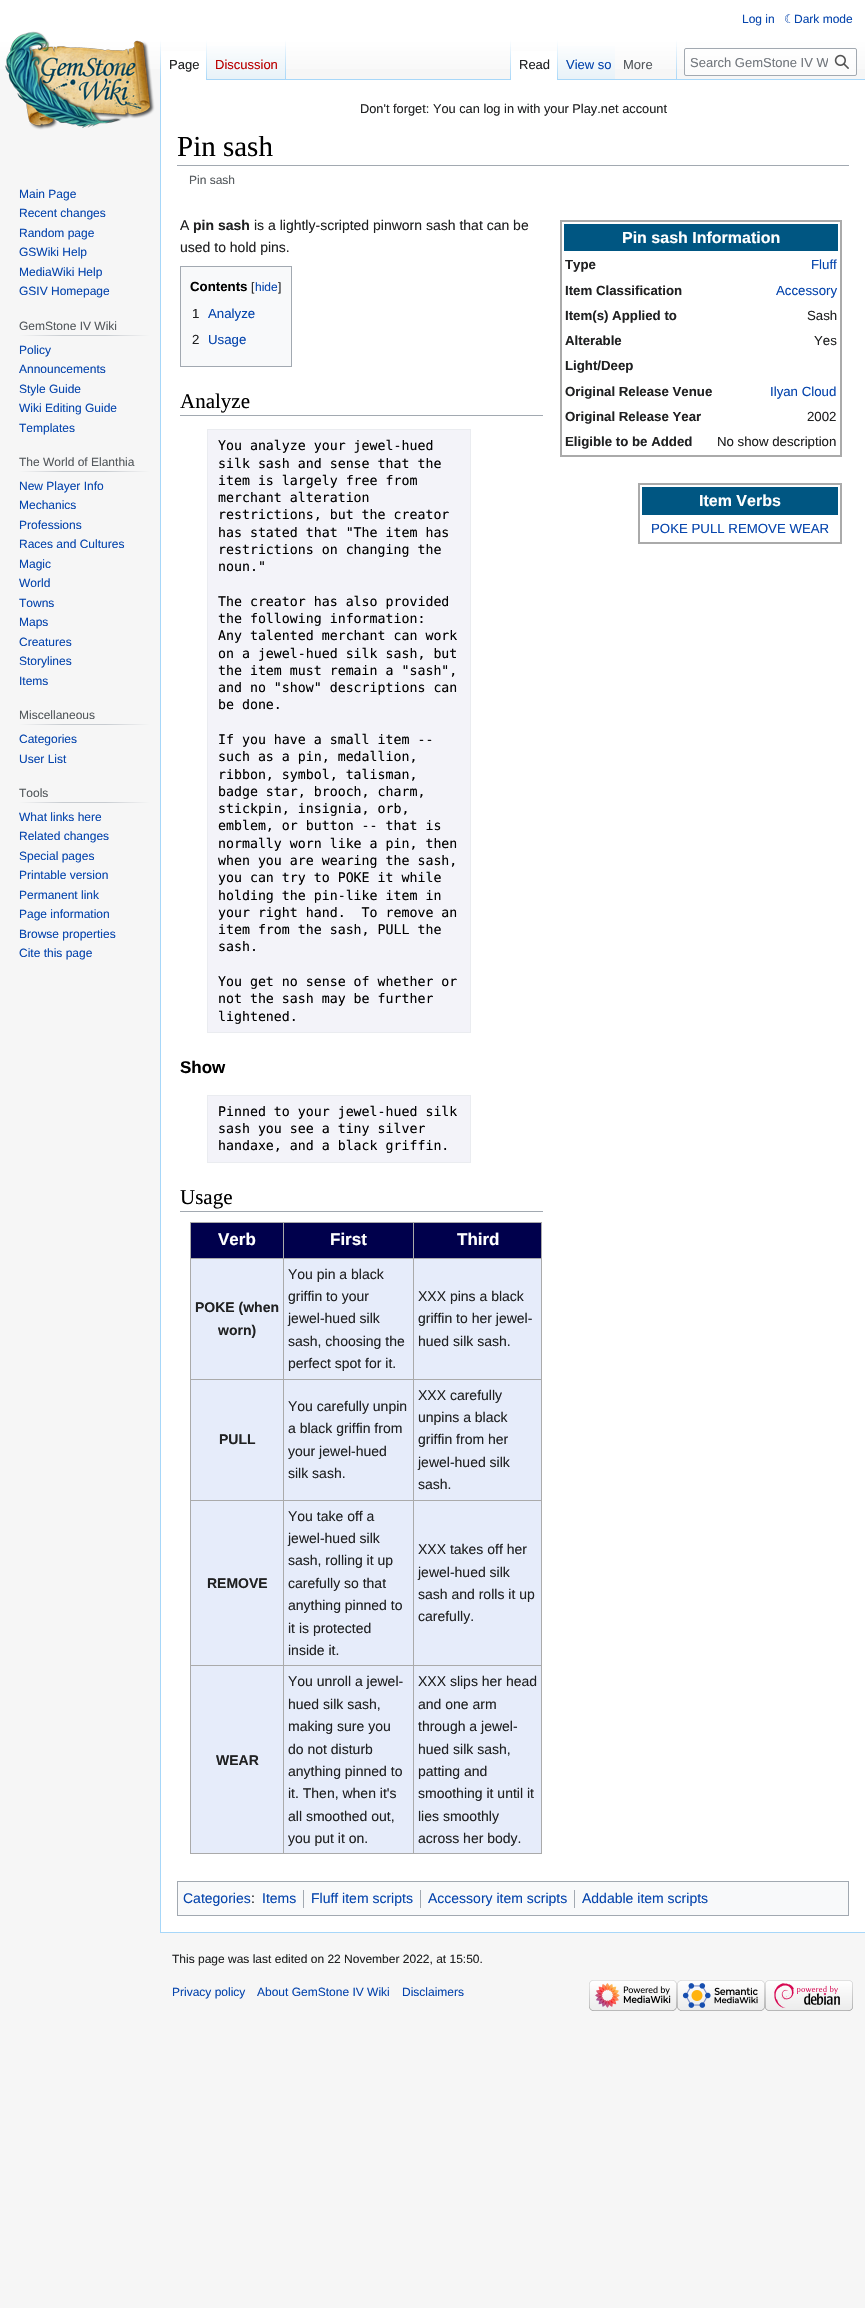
static SkFont makeFont(const char* family, int weight, float size, bool italic = false) {
  SkFontStyle style(weight, SkFontStyle::kNormal_Width,
    italic ? SkFontStyle::kItalic_Slant : SkFontStyle::kUpright_Slant);
  SkFont result(fontMgr->matchFamilyStyle(family, style), size);
  result.setSubpixel(true);
  return result;
}

static void text(SkCanvas* c, const char* s, float x, float y, const SkFont& font, SkColor color) {
  SkPaint ink(SkColor4f::FromColor(color));
  ink.setAntiAlias(true);
  c->drawString(s, x, y, font, ink);
}

static void box(SkCanvas* c, float l, float t, float r, float b, SkColor color) {
  SkPaint ink(SkColor4f::FromColor(color));
  ink.setAntiAlias(true);
  c->drawRect(SkRect::MakeLTRB(l, t, r, b), ink);
}

static void picture(SkCanvas* c, const char* path, float l, float t, float r, float b) {
  auto image = SkImages::DeferredFromEncodedData(SkData::MakeFromFileName(path));
  c->drawImageRect(image, SkRect::MakeLTRB(l, t, r, b), SkSamplingOptions());
}

void draw(SkCanvas* c) {
  SkPaint paint;
  paint.setAntiAlias(true);
  c->clear(0xfff6f6f6);
  {
    const SkColor colors[] = {0xffffffff, 0xfff6f6f6};
    const float stops[] = {0.5f, 1};
    const SkPoint ends[] = {{433, 0}, {433, 80}};
    paint.setShader(SkGradientShader::MakeLinear(ends, colors, stops, 2, SkTileMode::kClamp));
    paint.setAlpha(255);
  }
  c->drawRect(SkRect::MakeLTRB(0, 0, 865, 69), paint);
  SkFont face1 = makeFont("Liberation Sans", 400, 12);
  text(c, "Log in", 742, 23, face1, 0xff0645ad);
  SkFont face2 = makeFont("DejaVu Sans", 400, 12);
  text(c, "☾", 784, 23, face2, 0xff0645ad);
  text(c, "Dark mode", 794, 23, face1, 0xff0645ad);
  box(c, 160, 1932, 865, 1933, 0xffa7d7f9);
  box(c, 160, 79, 161, 1933, 0xffa7d7f9);
  {
    const SkColor colors[] = {0x00a7d7f9, 0xffa7d7f9};
    const float stops[] = {0, 1};
    const SkPoint ends[] = {{161, 40}, {161, 80}};
    paint.setShader(SkGradientShader::MakeLinear(ends, colors, stops, 2, SkTileMode::kClamp));
    paint.setAlpha(255);
  }
  c->drawRect(SkRect::MakeLTRB(160, 40, 161, 80), paint);
  box(c, 161, 51, 206, 80, 0xffffffff);
  {
    const SkColor colors[] = {0xffffffff, 0xffa7d7f9};
    const float stops[] = {0, 1};
    const SkPoint ends[] = {{207, 40}, {207, 80}};
    paint.setShader(SkGradientShader::MakeLinear(ends, colors, stops, 2, SkTileMode::kClamp));
    paint.setAlpha(255);
  }
  c->drawRect(SkRect::MakeLTRB(206, 40, 207, 80), paint);
  SkFont face3 = makeFont("Liberation Sans", 400, 13);
  text(c, "Page", 169, 69, face3, 0xff202122);
  {
    const SkColor colors[] = {0xff77c1f6, 0xffe8f2f8, 0xffffffff};
    const float stops[] = {0, 0.03f, 1};
    const SkPoint ends[] = {{247, 80}, {247, 40}};
    paint.setShader(SkGradientShader::MakeLinear(ends, colors, stops, 3, SkTileMode::kClamp));
    paint.setAlpha(255);
  }
  c->drawRect(SkRect::MakeLTRB(207, 46, 286, 80), paint);
  {
    const SkColor colors[] = {0x00a7d7f9, 0xffa7d7f9};
    const float stops[] = {0, 1};
    const SkPoint ends[] = {{286, 40}, {286, 80}};
    paint.setShader(SkGradientShader::MakeLinear(ends, colors, stops, 2, SkTileMode::kClamp));
    paint.setAlpha(255);
  }
  c->drawRect(SkRect::MakeLTRB(285, 40, 286, 80), paint);
  text(c, "Discussion", 215, 69, face3, 0xffba0000);
  box(c, 286, 79, 865, 80, 0xffa7d7f9);
  {
    const SkColor colors[] = {0x00a7d7f9, 0xffa7d7f9};
    const float stops[] = {0, 1};
    const SkPoint ends[] = {{511, 40}, {511, 80}};
    paint.setShader(SkGradientShader::MakeLinear(ends, colors, stops, 2, SkTileMode::kClamp));
    paint.setAlpha(255);
  }
  c->drawRect(SkRect::MakeLTRB(510, 40, 511, 80), paint);
  box(c, 511, 51, 557, 80, 0xffffffff);
  {
    const SkColor colors[] = {0xffffffff, 0xffa7d7f9};
    const float stops[] = {0, 1};
    const SkPoint ends[] = {{558, 40}, {558, 80}};
    paint.setShader(SkGradientShader::MakeLinear(ends, colors, stops, 2, SkTileMode::kClamp));
    paint.setAlpha(255);
  }
  c->drawRect(SkRect::MakeLTRB(557, 40, 558, 80), paint);
  text(c, "Read", 519, 69, face3, 0xff202122);
  {
    const SkColor colors[] = {0xff77c1f6, 0xffe8f2f8, 0xffffffff};
    const float stops[] = {0, 0.03f, 1};
    const SkPoint ends[] = {{587, 80}, {587, 40}};
    paint.setShader(SkGradientShader::MakeLinear(ends, colors, stops, 3, SkTileMode::kClamp));
    paint.setAlpha(255);
  }
  c->drawRect(SkRect::MakeLTRB(558, 46, 615, 79), paint);
  text(c, "View so", 566, 69, face3, 0xff0645ad);
  {
    const SkColor colors[] = {0x00a7d7f9, 0xffa7d7f9};
    const float stops[] = {0, 1};
    const SkPoint ends[] = {{677, 40}, {677, 80}};
    paint.setShader(SkGradientShader::MakeLinear(ends, colors, stops, 2, SkTileMode::kClamp));
    paint.setAlpha(255);
  }
  c->drawRect(SkRect::MakeLTRB(676, 40, 677, 80), paint);
  text(c, "More", 623, 69, face3, 0xff54595d);
  paint.setShader(nullptr);
  paint.setColor(0x80ffffff);
  c->drawRoundRect(SkRect::MakeLTRB(684.5f, 48.5f, 856.5f, 75.5f), 1.5f, 1.5f, paint);
  paint.setStyle(SkPaint::kStroke_Style);
  paint.setStrokeWidth(1);
  paint.setColor(0xffa2a9b1);
  c->drawRoundRect(SkRect::MakeLTRB(684.5f, 48.5f, 856.5f, 75.5f), 1.5f, 1.5f, paint);
  c->save();
  c->clipRect(SkRect::MakeLTRB(690, 55, 828, 70));
  text(c, "Search GemStone IV W", 690, 67, face3, 0xff72777d);
  c->restore();
  picture(c, "img_01.png", 834, 54, 849, 69);
  picture(c, "img_02.png", 5, 31, 155, 130);
  text(c, "Main Page", 19, 198, face1, 0xff0645ad);
  text(c, "Recent changes", 19, 217, face1, 0xff0645ad);
  text(c, "Random page", 19, 237, face1, 0xff0645ad);
  text(c, "GSWiki Help", 19, 256, face1, 0xff0645ad);
  text(c, "MediaWiki Help", 19, 276, face1, 0xff0645ad);
  text(c, "GSIV Homepage", 19, 295, face1, 0xff0645ad);
  paint.setStyle(SkPaint::kFill_Style);
  {
    const SkColor colors[] = {0xfff6f6f6, 0xffc8ccd1, 0xffc8ccd1, 0xfff6f6f6};
    const float stops[] = {0, 0.33f, 0.66f, 1};
    const SkPoint ends[] = {{19, 336}, {150, 336}};
    paint.setShader(SkGradientShader::MakeLinear(ends, colors, stops, 4, SkTileMode::kClamp));
    paint.setAlpha(255);
  }
  c->drawRect(SkRect::MakeLTRB(19, 335, 150, 336), paint);
  text(c, "GemStone IV Wiki", 19, 330, face1, 0xff54595d);
  text(c, "Policy", 19, 354, face1, 0xff0645ad);
  text(c, "Announcements", 19, 373, face1, 0xff0645ad);
  text(c, "Style Guide", 19, 393, face1, 0xff0645ad);
  text(c, "Wiki Editing Guide", 19, 412, face1, 0xff0645ad);
  text(c, "Templates", 19, 432, face1, 0xff0645ad);
  {
    const SkColor colors[] = {0xfff6f6f6, 0xffc8ccd1, 0xffc8ccd1, 0xfff6f6f6};
    const float stops[] = {0, 0.33f, 0.66f, 1};
    const SkPoint ends[] = {{19, 472}, {150, 472}};
    paint.setShader(SkGradientShader::MakeLinear(ends, colors, stops, 4, SkTileMode::kClamp));
    paint.setAlpha(255);
  }
  c->drawRect(SkRect::MakeLTRB(19, 471, 150, 472), paint);
  text(c, "The World of Elanthia", 19, 466, face1, 0xff54595d);
  text(c, "New Player Info", 19, 490, face1, 0xff0645ad);
  text(c, "Mechanics", 19, 509, face1, 0xff0645ad);
  text(c, "Professions", 19, 529, face1, 0xff0645ad);
  text(c, "Races and Cultures", 19, 548, face1, 0xff0645ad);
  text(c, "Magic", 19, 568, face1, 0xff0645ad);
  text(c, "World", 19, 587, face1, 0xff0645ad);
  text(c, "Towns", 19, 607, face1, 0xff0645ad);
  text(c, "Maps", 19, 626, face1, 0xff0645ad);
  text(c, "Creatures", 19, 646, face1, 0xff0645ad);
  text(c, "Storylines", 19, 665, face1, 0xff0645ad);
  text(c, "Items", 19, 685, face1, 0xff0645ad);
  {
    const SkColor colors[] = {0xfff6f6f6, 0xffc8ccd1, 0xffc8ccd1, 0xfff6f6f6};
    const float stops[] = {0, 0.33f, 0.66f, 1};
    const SkPoint ends[] = {{19, 725}, {150, 725}};
    paint.setShader(SkGradientShader::MakeLinear(ends, colors, stops, 4, SkTileMode::kClamp));
    paint.setAlpha(255);
  }
  c->drawRect(SkRect::MakeLTRB(19, 724, 150, 725), paint);
  text(c, "Miscellaneous", 19, 719, face1, 0xff54595d);
  text(c, "Categories", 19, 743, face1, 0xff0645ad);
  text(c, "User List", 19, 763, face1, 0xff0645ad);
  {
    const SkColor colors[] = {0xfff6f6f6, 0xffc8ccd1, 0xffc8ccd1, 0xfff6f6f6};
    const float stops[] = {0, 0.33f, 0.66f, 1};
    const SkPoint ends[] = {{19, 803}, {150, 803}};
    paint.setShader(SkGradientShader::MakeLinear(ends, colors, stops, 4, SkTileMode::kClamp));
    paint.setAlpha(255);
  }
  c->drawRect(SkRect::MakeLTRB(19, 802, 150, 803), paint);
  text(c, "Tools", 19, 797, face1, 0xff54595d);
  text(c, "What links here", 19, 821, face1, 0xff0645ad);
  text(c, "Related changes", 19, 840, face1, 0xff0645ad);
  text(c, "Special pages", 19, 860, face1, 0xff0645ad);
  text(c, "Printable version", 19, 879, face1, 0xff0645ad);
  text(c, "Permanent link", 19, 899, face1, 0xff0645ad);
  text(c, "Page information", 19, 918, face1, 0xff0645ad);
  text(c, "Browse properties", 19, 938, face1, 0xff0645ad);
  text(c, "Cite this page", 19, 957, face1, 0xff0645ad);
  box(c, 161, 80, 865, 1932, 0xffffffff);
  SkFont face4 = makeFont("Liberation Sans", 400, 12.8f);
  text(c, "Don't forget: You can log in with your Play.net account", 360, 113, face4, 0xff202122);
  box(c, 177, 165, 849, 166, 0xffa2a9b1);
  SkFont face5 = makeFont("Liberation Serif", 400, 29);
  text(c, "Pin sash", 177, 156, face5, 0xff000000);
  text(c, "Pin sash", 189, 184, face1, 0xff54595d);
  SkFont face6 = makeFont("Liberation Sans", 400, 14);
  text(c, "A", 180, 230, face6, 0xff202122);
  SkFont face7 = makeFont("Liberation Sans", 700, 14);
  text(c, "pin sash", 193, 230, face7, 0xff202122);
  text(c, "is a lightly-scripted pinworn sash that can be", 254, 230, face6, 0xff202122);
  text(c, "used to hold pins.", 180, 252, face6, 0xff202122);
  paint.setShader(nullptr);
  paint.setColor(0xfff8f9fa);
  c->drawRect(SkRect::MakeLTRB(180.5f, 266.5f, 291.5f, 366.5f), paint);
  paint.setStyle(SkPaint::kStroke_Style);
  paint.setColor(0xffa2a9b1);
  c->drawRect(SkRect::MakeLTRB(180.5f, 266.5f, 291.5f, 366.5f), paint);
  SkFont face8 = makeFont("Liberation Sans", 700, 13.25f);
  text(c, "Contents", 190, 291, face8, 0xff000000);
  text(c, "[", 251, 291, face1, 0xff202122);
  text(c, "hide", 255, 291, face1, 0xff0645ad);
  text(c, "]", 278, 291, face1, 0xff202122);
  SkFont face9 = makeFont("Liberation Sans", 400, 13.25f);
  text(c, "1", 192, 318, face9, 0xff202122);
  text(c, "Analyze", 208, 318, face9, 0xff0645ad);
  text(c, "2", 192, 344, face9, 0xff202122);
  text(c, "Usage", 208, 344, face9, 0xff0645ad);
  box(c, 180, 415, 543, 416, 0xffa2a9b1);
  SkFont face10 = makeFont("Liberation Serif", 400, 21);
  text(c, "Analyze", 180, 408, face10, 0xff000000);
  paint.setStyle(SkPaint::kFill_Style);
  paint.setColor(0xfff3f3f9);
  c->drawRect(SkRect::MakeLTRB(207.5f, 429.5f, 470.5f, 1032.5f), paint);
  paint.setStyle(SkPaint::kStroke_Style);
  paint.setColor(0xffeaecf0);
  c->drawRect(SkRect::MakeLTRB(207.5f, 429.5f, 470.5f, 1032.5f), paint);
  SkFont face11 = makeFont("DejaVu Sans Mono", 400, 13.25f);
  text(c, "You analyze your jewel-hued", 218, 450, face11, 0xff000000);
  text(c, "silk sash and sense that the", 218, 468, face11, 0xff000000);
  text(c, "item is largely free from", 218, 485, face11, 0xff000000);
  text(c, "merchant alteration", 218, 502, face11, 0xff000000);
  text(c, "restrictions, but the creator", 218, 519, face11, 0xff000000);
  text(c, "has stated that \"The item has", 218, 537, face11, 0xff000000);
  text(c, "restrictions on changing the", 218, 554, face11, 0xff000000);
  text(c, "noun.\"", 218, 571, face11, 0xff000000);
  text(c, "The creator has also provided", 218, 606, face11, 0xff000000);
  text(c, "the following information:", 218, 623, face11, 0xff000000);
  text(c, "Any talented merchant can work", 218, 640, face11, 0xff000000);
  text(c, "on a jewel-hued silk sash, but", 218, 658, face11, 0xff000000);
  text(c, "the item must remain a \"sash\",", 218, 675, face11, 0xff000000);
  text(c, "and no \"show\" descriptions can", 218, 692, face11, 0xff000000);
  text(c, "be done.", 218, 709, face11, 0xff000000);
  text(c, "If you have a small item --", 218, 744, face11, 0xff000000);
  text(c, "such as a pin, medallion,", 218, 761, face11, 0xff000000);
  text(c, "ribbon, symbol, talisman,", 218, 779, face11, 0xff000000);
  text(c, "badge star, brooch, charm,", 218, 796, face11, 0xff000000);
  text(c, "stickpin, insignia, orb,", 218, 813, face11, 0xff000000);
  text(c, "emblem, or button -- that is", 218, 830, face11, 0xff000000);
  text(c, "normally worn like a pin, then", 218, 848, face11, 0xff000000);
  text(c, "when you are wearing the sash,", 218, 865, face11, 0xff000000);
  text(c, "you can try to POKE it while", 218, 882, face11, 0xff000000);
  text(c, "holding the pin-like item in", 218, 900, face11, 0xff000000);
  text(c, "your right hand.  To remove an", 218, 917, face11, 0xff000000);
  text(c, "item from the sash, PULL the", 218, 934, face11, 0xff000000);
  text(c, "sash.", 218, 951, face11, 0xff000000);
  text(c, "You get no sense of whether or", 218, 986, face11, 0xff000000);
  text(c, "not the sash may be further", 218, 1003, face11, 0xff000000);
  text(c, "lightened.", 218, 1021, face11, 0xff000000);
  SkFont face12 = makeFont("Liberation Sans", 700, 17);
  text(c, "Show", 180, 1073, face12, 0xff000000);
  paint.setStyle(SkPaint::kFill_Style);
  paint.setColor(0xfff3f3f9);
  c->drawRect(SkRect::MakeLTRB(207.5f, 1095.5f, 470.5f, 1162.5f), paint);
  paint.setStyle(SkPaint::kStroke_Style);
  paint.setColor(0xffeaecf0);
  c->drawRect(SkRect::MakeLTRB(207.5f, 1095.5f, 470.5f, 1162.5f), paint);
  text(c, "Pinned to your jewel-hued silk", 218, 1116, face11, 0xff000000);
  text(c, "sash you see a tiny silver", 218, 1133, face11, 0xff000000);
  text(c, "handaxe, and a black griffin.", 218, 1150, face11, 0xff000000);
  box(c, 180, 1211, 543, 1212, 0xffa2a9b1);
  text(c, "Usage", 180, 1204, face10, 0xff000000);
  box(c, 191, 1259, 541, 1853, 0xffe6ecfa);
  box(c, 190, 1222, 542, 1223, 0xffaaaaaa);
  box(c, 541, 1222, 542, 1854, 0xffaaaaaa);
  box(c, 190, 1853, 542, 1854, 0xffaaaaaa);
  box(c, 190, 1222, 191, 1854, 0xffaaaaaa);
  box(c, 191, 1223, 541, 1258, 0xff00004c);
  text(c, "Verb", 218, 1245, face12, 0xffffffff);
  box(c, 413, 1258, 542, 1259, 0xffaaaaaa);
  box(c, 413, 1379, 542, 1380, 0xffaaaaaa);
  box(c, 413, 1500, 542, 1501, 0xffaaaaaa);
  box(c, 413, 1665, 542, 1666, 0xffaaaaaa);
  box(c, 413, 1665, 414, 1854, 0xffaaaaaa);
  box(c, 283, 1665, 414, 1666, 0xffaaaaaa);
  box(c, 413, 1500, 414, 1666, 0xffaaaaaa);
  box(c, 283, 1500, 414, 1501, 0xffaaaaaa);
  box(c, 413, 1379, 414, 1501, 0xffaaaaaa);
  box(c, 283, 1379, 414, 1380, 0xffaaaaaa);
  box(c, 413, 1258, 414, 1380, 0xffaaaaaa);
  box(c, 283, 1258, 414, 1259, 0xffaaaaaa);
  box(c, 283, 1665, 284, 1854, 0xffaaaaaa);
  box(c, 190, 1665, 284, 1666, 0xffaaaaaa);
  box(c, 283, 1500, 284, 1666, 0xffaaaaaa);
  box(c, 190, 1500, 284, 1501, 0xffaaaaaa);
  box(c, 283, 1379, 284, 1501, 0xffaaaaaa);
  box(c, 190, 1379, 284, 1380, 0xffaaaaaa);
  box(c, 283, 1258, 284, 1380, 0xffaaaaaa);
  box(c, 190, 1258, 284, 1259, 0xffaaaaaa);
  box(c, 283, 1222, 284, 1259, 0xffaaaaaa);
  text(c, "First", 330, 1245, face12, 0xffffffff);
  box(c, 413, 1222, 414, 1259, 0xffaaaaaa);
  text(c, "Third", 457, 1245, face12, 0xffffffff);
  text(c, "POKE (when", 195, 1312, face7, 0xff202122);
  text(c, "worn)", 218, 1335, face7, 0xff202122);
  text(c, "You pin a black", 288, 1279, face6, 0xff202122);
  text(c, "griffin to your", 288, 1301, face6, 0xff202122);
  text(c, "jewel-hued silk", 288, 1323, face6, 0xff202122);
  text(c, "sash, choosing the", 288, 1346, face6, 0xff202122);
  text(c, "perfect spot for it.", 288, 1368, face6, 0xff202122);
  text(c, "XXX pins a black", 418, 1301, face6, 0xff202122);
  text(c, "griffin to her jewel-", 418, 1323, face6, 0xff202122);
  text(c, "hued silk sash.", 418, 1346, face6, 0xff202122);
  text(c, "PULL", 219, 1444, face7, 0xff202122);
  text(c, "You carefully unpin", 288, 1411, face6, 0xff202122);
  text(c, "a black griffin from", 288, 1433, face6, 0xff202122);
  text(c, "your jewel-hued", 288, 1456, face6, 0xff202122);
  text(c, "silk sash.", 288, 1478, face6, 0xff202122);
  text(c, "XXX carefully", 418, 1400, face6, 0xff202122);
  text(c, "unpins a black", 418, 1422, face6, 0xff202122);
  text(c, "griffin from her", 418, 1444, face6, 0xff202122);
  text(c, "jewel-hued silk", 418, 1467, face6, 0xff202122);
  text(c, "sash.", 418, 1489, face6, 0xff202122);
  text(c, "REMOVE", 207, 1588, face7, 0xff202122);
  text(c, "You take off a", 288, 1521, face6, 0xff202122);
  text(c, "jewel-hued silk", 288, 1543, face6, 0xff202122);
  text(c, "sash, rolling it up", 288, 1565, face6, 0xff202122);
  text(c, "carefully so that", 288, 1588, face6, 0xff202122);
  text(c, "anything pinned to", 288, 1610, face6, 0xff202122);
  text(c, "it is protected", 288, 1633, face6, 0xff202122);
  text(c, "inside it.", 288, 1655, face6, 0xff202122);
  text(c, "XXX takes off her", 418, 1554, face6, 0xff202122);
  text(c, "jewel-hued silk", 418, 1577, face6, 0xff202122);
  text(c, "sash and rolls it up", 418, 1599, face6, 0xff202122);
  text(c, "carefully.", 418, 1621, face6, 0xff202122);
  text(c, "WEAR", 216, 1765, face7, 0xff202122);
  text(c, "You unroll a jewel-", 288, 1686, face6, 0xff202122);
  text(c, "hued silk sash,", 288, 1709, face6, 0xff202122);
  text(c, "making sure you", 288, 1731, face6, 0xff202122);
  text(c, "do not disturb", 288, 1754, face6, 0xff202122);
  text(c, "anything pinned to", 288, 1776, face6, 0xff202122);
  text(c, "it. Then, when it's", 288, 1798, face6, 0xff202122);
  text(c, "all smoothed out,", 288, 1821, face6, 0xff202122);
  text(c, "you put it on.", 288, 1843, face6, 0xff202122);
  text(c, "XXX slips her head", 418, 1686, face6, 0xff202122);
  text(c, "and one arm", 418, 1709, face6, 0xff202122);
  text(c, "through a jewel-", 418, 1731, face6, 0xff202122);
  text(c, "hued silk sash,", 418, 1754, face6, 0xff202122);
  text(c, "patting and", 418, 1776, face6, 0xff202122);
  text(c, "smoothing it until it", 418, 1798, face6, 0xff202122);
  text(c, "lies smoothly", 418, 1821, face6, 0xff202122);
  text(c, "across her body.", 418, 1843, face6, 0xff202122);
  paint.setStrokeWidth(2);
  paint.setColor(0xffaaaaaa);
  c->drawRect(SkRect::MakeLTRB(561, 221, 841, 456), paint);
  box(c, 564, 224, 838, 251, 0xff005682);
  SkFont face13 = makeFont("Liberation Sans", 700, 16);
  text(c, "Pin sash Information", 622, 243, face13, 0xffffffff);
  text(c, "Type", 565, 269, face8, 0xff202122);
  text(c, "Fluff", 811, 269, face9, 0xff0645ad);
  text(c, "Item Classification", 565, 295, face8, 0xff202122);
  text(c, "Accessory", 776, 295, face9, 0xff0645ad);
  text(c, "Item(s) Applied to", 565, 320, face8, 0xff202122);
  text(c, "Sash", 807, 320, face9, 0xff202122);
  text(c, "Alterable", 565, 345, face8, 0xff202122);
  text(c, "Yes", 814, 345, face9, 0xff202122);
  text(c, "Light/Deep", 565, 370, face8, 0xff202122);
  text(c, "Original Release Venue", 565, 396, face8, 0xff202122);
  text(c, "Ilyan Cloud", 770, 396, face9, 0xff0645ad);
  text(c, "Original Release Year", 565, 421, face8, 0xff202122);
  text(c, "2002", 807, 421, face9, 0xff202122);
  text(c, "Eligible to be Added", 565, 446, face8, 0xff202122);
  text(c, "No show description", 717, 446, face9, 0xff202122);
  c->drawRect(SkRect::MakeLTRB(639, 484, 841, 543), paint);
  box(c, 642, 487, 838, 515, 0xff005682);
  text(c, "Item Verbs", 699, 506, face13, 0xffffffff);
  text(c, "POKE PULL REMOVE WEAR", 651, 533, face9, 0xff0645ad);
  paint.setStyle(SkPaint::kFill_Style);
  paint.setColor(0xfff8f9fa);
  c->drawRect(SkRect::MakeLTRB(177.5f, 1881.5f, 848.5f, 1915.5f), paint);
  paint.setStyle(SkPaint::kStroke_Style);
  paint.setStrokeWidth(1);
  paint.setColor(0xffa2a9b1);
  c->drawRect(SkRect::MakeLTRB(177.5f, 1881.5f, 848.5f, 1915.5f), paint);
  text(c, "Categories", 183, 1903, face6, 0xff0645ad);
  text(c, ":", 251, 1903, face6, 0xff202122);
  text(c, "Items", 262, 1903, face6, 0xff0645ad);
  box(c, 303, 1890, 304, 1908, 0xffa2a9b1);
  text(c, "Fluff item scripts", 311, 1903, face6, 0xff0645ad);
  box(c, 420, 1890, 421, 1908, 0xffa2a9b1);
  text(c, "Accessory item scripts", 428, 1903, face6, 0xff0645ad);
  box(c, 574, 1890, 575, 1908, 0xffa2a9b1);
  text(c, "Addable item scripts", 582, 1903, face6, 0xff0645ad);
  text(c, "This page was last edited on 22 November 2022, at 15:50.", 172, 1963, face1, 0xff202122);
  text(c, "Privacy policy", 172, 1996, face1, 0xff0645ad);
  text(c, "About GemStone IV Wiki", 257, 1996, face1, 0xff0645ad);
  text(c, "Disclaimers", 402, 1996, face1, 0xff0645ad);
  picture(c, "img_03.png", 589, 1980, 677, 2011);
  picture(c, "img_04.png", 677, 1980, 765, 2011);
  picture(c, "img_05.png", 765, 1980, 853, 2011);
}
